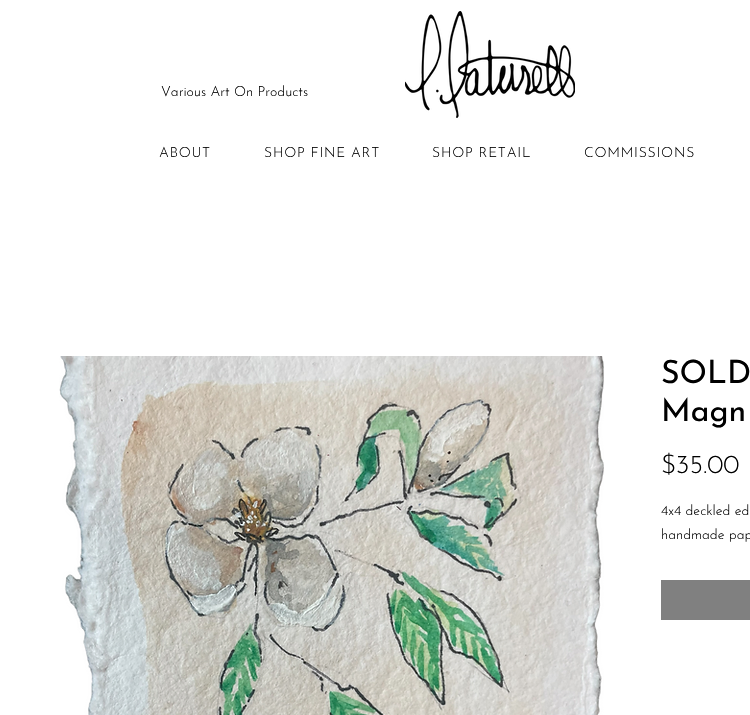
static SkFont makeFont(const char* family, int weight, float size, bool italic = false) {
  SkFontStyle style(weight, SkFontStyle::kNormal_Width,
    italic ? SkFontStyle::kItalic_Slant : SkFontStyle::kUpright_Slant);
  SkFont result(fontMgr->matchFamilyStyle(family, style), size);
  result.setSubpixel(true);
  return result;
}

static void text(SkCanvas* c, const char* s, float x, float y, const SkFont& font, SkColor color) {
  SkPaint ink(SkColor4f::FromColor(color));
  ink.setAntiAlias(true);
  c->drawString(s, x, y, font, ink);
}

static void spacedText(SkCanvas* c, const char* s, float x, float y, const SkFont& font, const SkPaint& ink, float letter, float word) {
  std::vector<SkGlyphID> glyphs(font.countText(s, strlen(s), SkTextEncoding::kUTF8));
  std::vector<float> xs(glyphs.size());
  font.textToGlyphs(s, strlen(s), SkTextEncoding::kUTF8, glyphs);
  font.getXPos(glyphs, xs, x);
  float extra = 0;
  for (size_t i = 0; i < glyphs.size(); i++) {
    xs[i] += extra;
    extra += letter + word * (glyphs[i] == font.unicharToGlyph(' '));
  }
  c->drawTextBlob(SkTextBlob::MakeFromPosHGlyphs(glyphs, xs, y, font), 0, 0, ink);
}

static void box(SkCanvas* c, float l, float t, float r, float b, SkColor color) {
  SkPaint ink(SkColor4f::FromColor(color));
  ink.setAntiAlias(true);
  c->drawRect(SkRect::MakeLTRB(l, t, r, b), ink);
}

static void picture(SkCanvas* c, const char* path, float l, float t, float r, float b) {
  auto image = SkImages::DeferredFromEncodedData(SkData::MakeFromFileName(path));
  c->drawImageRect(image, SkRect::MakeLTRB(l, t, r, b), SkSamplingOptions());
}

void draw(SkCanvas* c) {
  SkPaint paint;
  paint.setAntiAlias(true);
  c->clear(0xffffffff);
  SkFont face1 = makeFont("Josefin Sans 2", 100, 14);
  text(c, "Various Art On Products", 161, 96, face1, 0xff000000);
  picture(c, "img_01.png", 405, 11, 575, 118);
  paint.setColor(0xff000000);
  spacedText(c, "ABOUT", 159, 157, face1, paint, 0.75f, 0);
  spacedText(c, "SHOP FINE ART", 264, 157, face1, paint, 0.75f, 0);
  spacedText(c, "SHOP RETAIL", 432, 157, face1, paint, 0.75f, 0);
  spacedText(c, "COMMISSIONS", 584, 157, face1, paint, 0.75f, 0);
  picture(c, "img_02.png", 59, 356, 604, 715);
  SkFont face2 = makeFont("Josefin Sans", 100, 32);
  text(c, "SOLD", 661, 383, face2, 0xff000000);
  text(c, "Magn", 661, 421, face2, 0xff000000);
  SkFont face3 = makeFont("Josefin Sans 2", 100, 26);
  text(c, "$35.00", 661, 473, face3, 0xff000000);
  text(c, "4x4 deckled ed", 661, 515, face1, 0xff000000);
  text(c, "handmade pap", 661, 539, face1, 0xff000000);
  box(c, 661, 580, 750, 620, 0xff808080);
}
